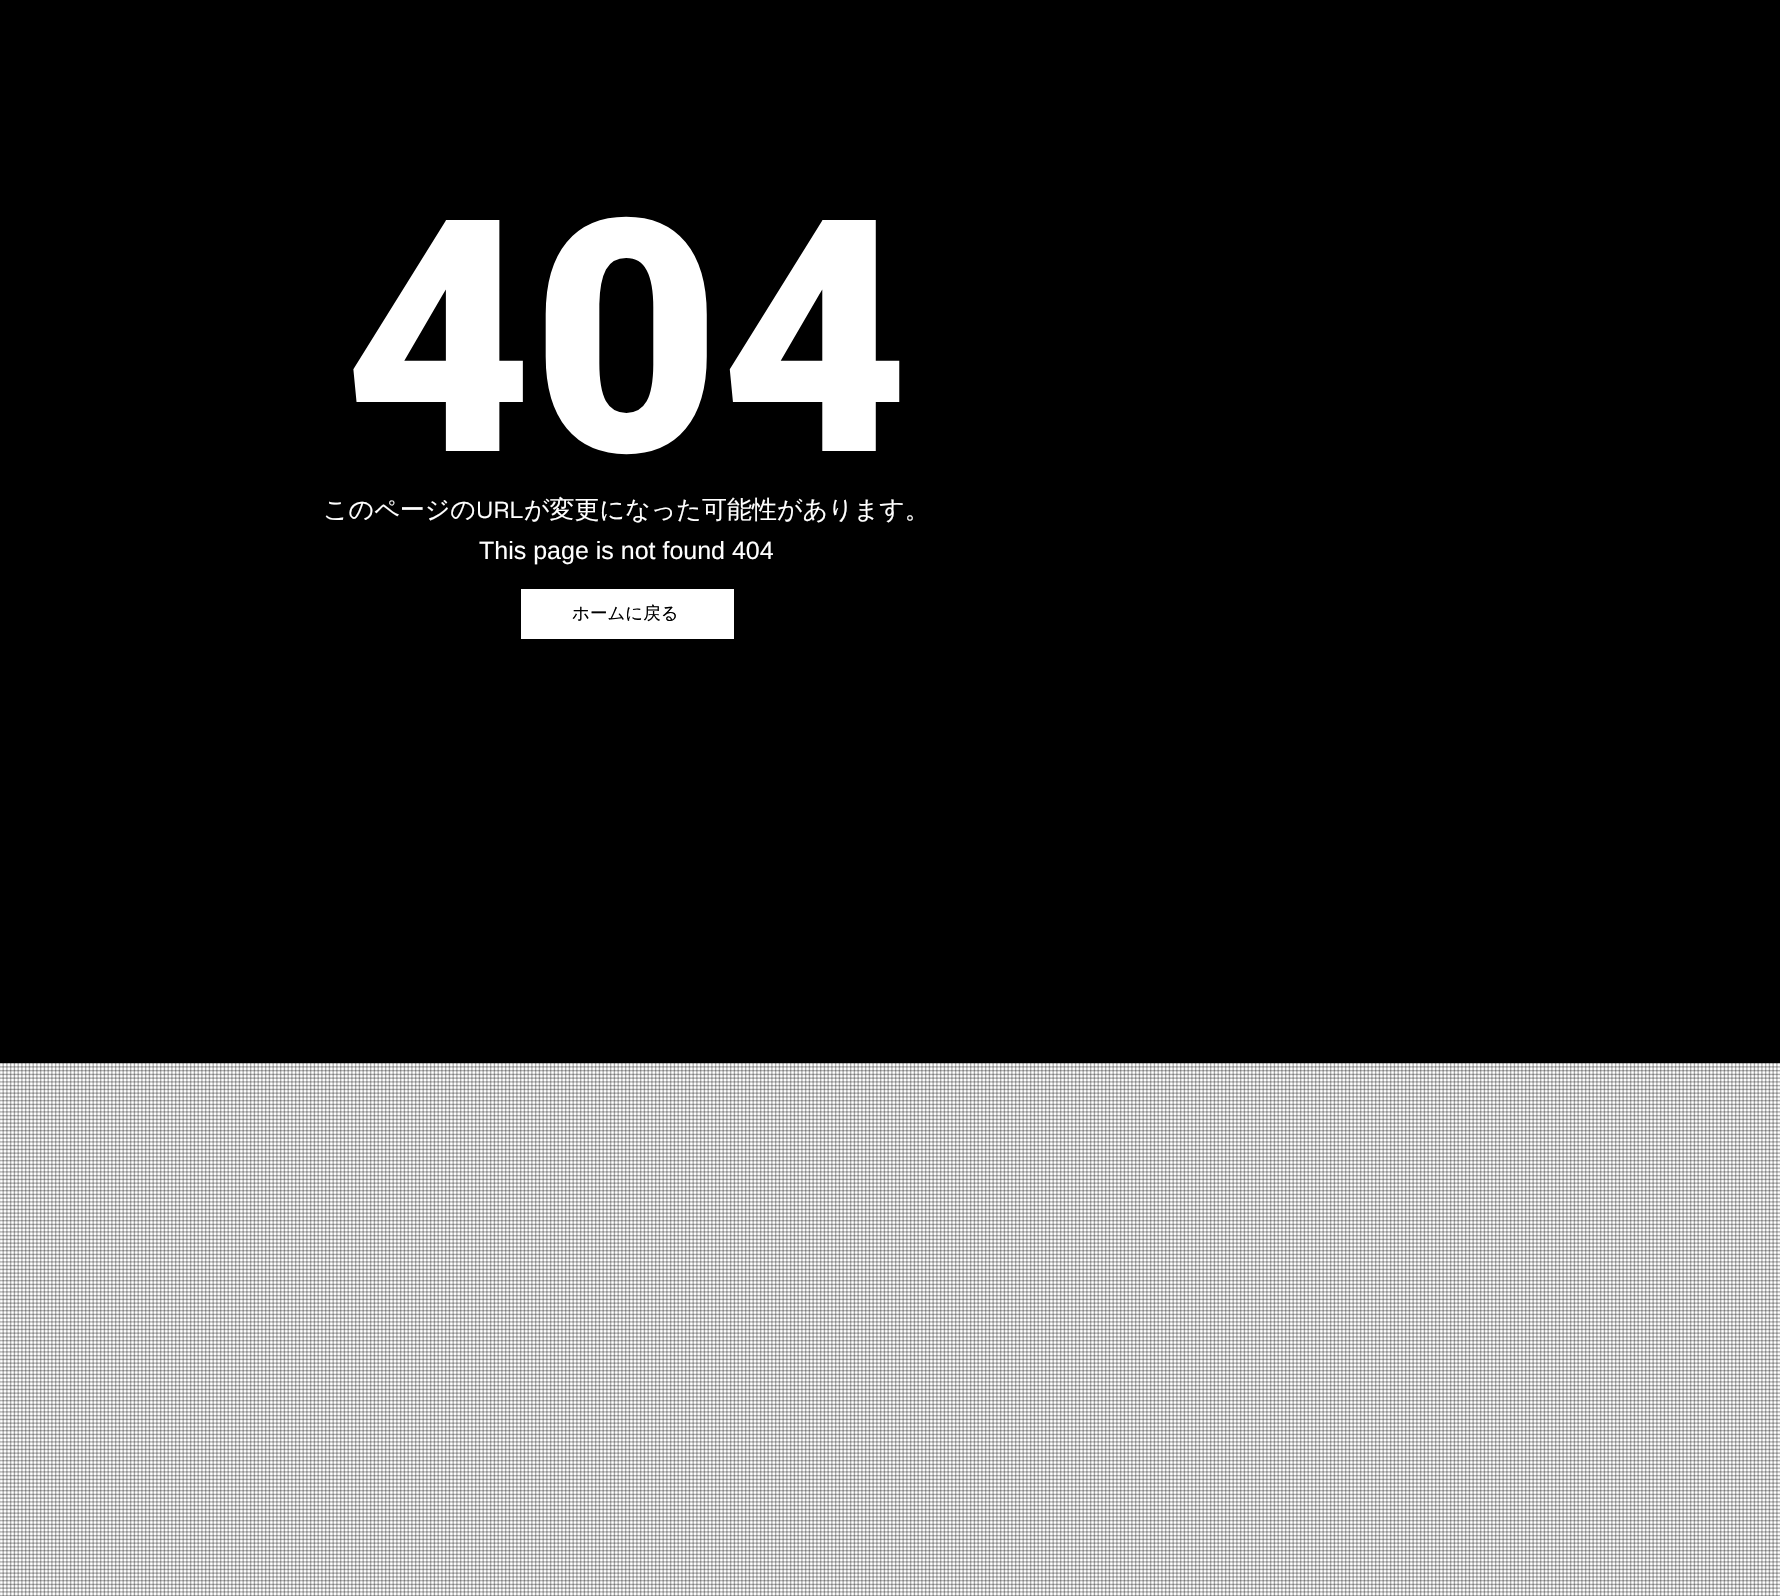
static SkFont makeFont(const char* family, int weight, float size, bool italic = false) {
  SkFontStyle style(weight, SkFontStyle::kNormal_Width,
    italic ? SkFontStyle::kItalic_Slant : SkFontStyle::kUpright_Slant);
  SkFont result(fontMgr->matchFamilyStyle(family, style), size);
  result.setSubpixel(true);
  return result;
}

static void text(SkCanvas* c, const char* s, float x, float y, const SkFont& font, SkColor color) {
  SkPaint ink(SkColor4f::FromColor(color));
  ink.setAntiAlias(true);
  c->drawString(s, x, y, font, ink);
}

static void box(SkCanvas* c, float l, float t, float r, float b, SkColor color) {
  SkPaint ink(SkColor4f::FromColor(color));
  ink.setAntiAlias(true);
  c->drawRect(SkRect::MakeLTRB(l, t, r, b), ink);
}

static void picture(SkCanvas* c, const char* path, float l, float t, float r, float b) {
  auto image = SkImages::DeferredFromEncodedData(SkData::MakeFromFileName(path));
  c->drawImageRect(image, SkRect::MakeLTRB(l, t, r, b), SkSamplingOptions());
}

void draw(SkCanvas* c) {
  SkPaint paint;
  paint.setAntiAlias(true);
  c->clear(0xffffffff);
  box(c, 0, 0, 1780, 1063, 0xff000000);
  SkFont face1 = makeFont("Roboto", 900, 325);
  text(c, "404", 344, 451, face1, 0xffffffff);
  SkFont face2 = makeFont("WenQuanYi Zen Hei", 500, 25);
  text(c, "このページの", 323, 518, face2, 0xffffffff);
  SkFont face3 = makeFont("Syne", 400, 25);
  text(c, "URL", 476, 518, face3, 0xffffffff);
  text(c, "が変更になった可能性があります。", 524, 518, face2, 0xffffffff);
  SkFont face4 = makeFont("Liberation Sans", 400, 25);
  text(c, "This page is not found 404", 479, 559, face4, 0xffffffff);
  box(c, 521, 589, 734, 639, 0xffffffff);
  SkFont face5 = makeFont("WenQuanYi Zen Hei", 500, 17.5f);
  text(c, "ホームに戻る", 572, 619, face5, 0xff000000);
  picture(c, "img_01.png", 0, 1063, 1780, 1596);
}
